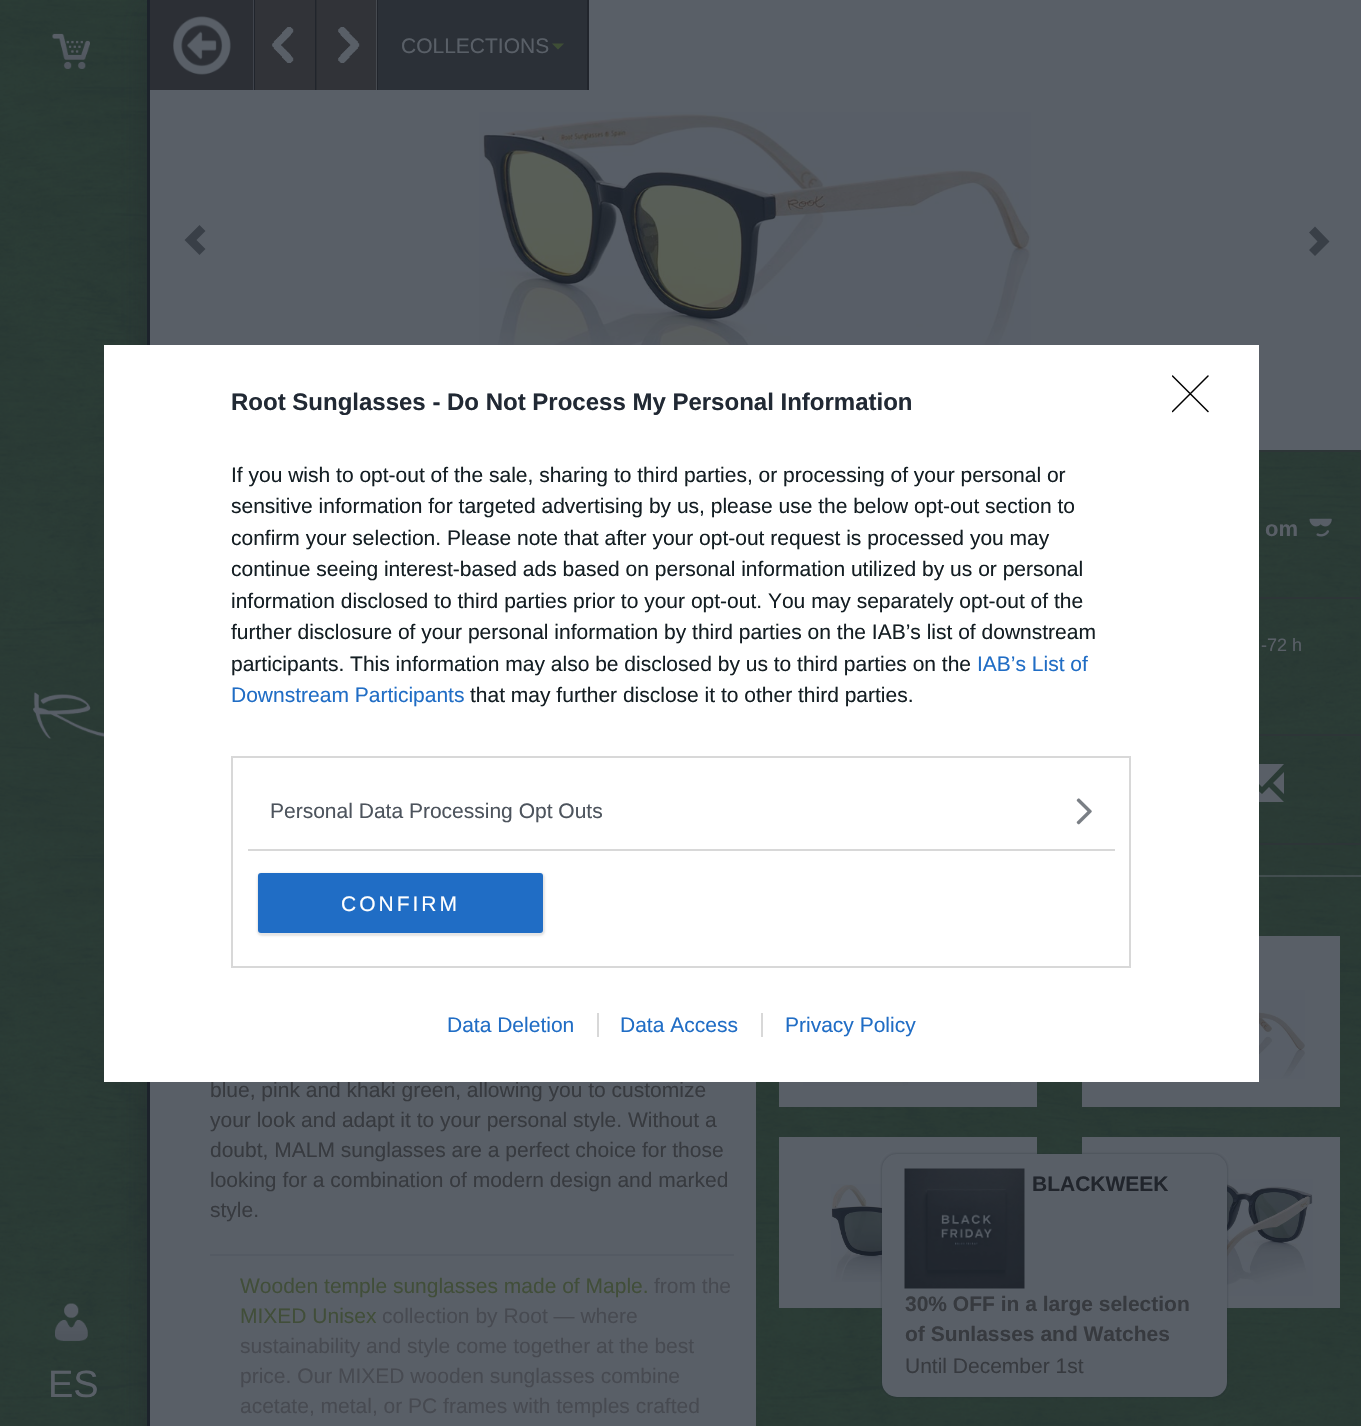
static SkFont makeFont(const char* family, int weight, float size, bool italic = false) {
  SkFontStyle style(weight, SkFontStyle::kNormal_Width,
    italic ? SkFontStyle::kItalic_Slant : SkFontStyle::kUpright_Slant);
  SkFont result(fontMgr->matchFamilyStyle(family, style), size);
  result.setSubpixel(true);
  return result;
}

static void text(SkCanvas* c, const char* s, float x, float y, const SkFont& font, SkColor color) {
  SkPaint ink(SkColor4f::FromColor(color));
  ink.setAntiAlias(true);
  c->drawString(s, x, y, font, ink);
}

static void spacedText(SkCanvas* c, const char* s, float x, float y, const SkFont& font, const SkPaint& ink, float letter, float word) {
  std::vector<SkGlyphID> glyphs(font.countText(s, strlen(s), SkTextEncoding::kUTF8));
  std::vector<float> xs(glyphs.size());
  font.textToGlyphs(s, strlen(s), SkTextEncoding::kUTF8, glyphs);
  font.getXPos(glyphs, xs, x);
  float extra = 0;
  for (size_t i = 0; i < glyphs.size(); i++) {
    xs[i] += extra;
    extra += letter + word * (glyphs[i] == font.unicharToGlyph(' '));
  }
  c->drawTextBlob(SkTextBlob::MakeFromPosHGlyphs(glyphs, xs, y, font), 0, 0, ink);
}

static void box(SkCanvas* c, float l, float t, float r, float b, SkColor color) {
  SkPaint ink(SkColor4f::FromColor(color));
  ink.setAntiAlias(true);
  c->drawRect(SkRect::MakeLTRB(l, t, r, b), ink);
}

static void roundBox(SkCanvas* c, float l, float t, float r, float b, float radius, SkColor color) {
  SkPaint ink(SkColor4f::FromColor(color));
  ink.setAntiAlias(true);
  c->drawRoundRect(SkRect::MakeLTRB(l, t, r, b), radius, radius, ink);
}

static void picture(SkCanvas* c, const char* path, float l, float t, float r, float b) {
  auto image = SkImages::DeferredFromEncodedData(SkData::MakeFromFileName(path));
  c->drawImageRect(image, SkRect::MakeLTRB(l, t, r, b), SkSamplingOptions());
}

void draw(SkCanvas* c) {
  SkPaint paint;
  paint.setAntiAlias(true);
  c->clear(0xffffffff);
  picture(c, "img_01.png", 0, 0, 147, 1426);
  box(c, 150, 0, 1361, 450, 0xff595f67);
  c->save();
  c->clipRect(SkRect::MakeLTRB(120, 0, 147, 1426));
  paint.setColor(0x4d191f27);
  paint.setMaskFilter(SkMaskFilter::MakeBlur(kNormal_SkBlurStyle, 15));
  c->drawRect(SkRect::MakeLTRB(143, 8, 1340, 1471), paint);
  paint.setMaskFilter(nullptr);
  c->restore();
  picture(c, "img_02.png", 150, 0, 254, 90);
  box(c, 254, 0, 255, 90, 0xff21252c);
  box(c, 315, 0, 317, 90, 0xff21252c);
  picture(c, "img_03.png", 255, 0, 315, 90);
  box(c, 377, 0, 378, 90, 0xff21252c);
  picture(c, "img_04.png", 316, 0, 377, 90);
  box(c, 378, 0, 587, 90, 0xff2b3037);
  box(c, 587, 0, 589, 90, 0xff21252c);
  SkFont face1 = makeFont("Liberation Sans", 400, 21);
  text(c, "COLLECTIONS", 401, 53, face1, 0xff595f67);
  paint.setColor(0xff3e4e35);
  c->drawPath(SkPathBuilder().moveTo(552, 43.5f).lineTo(564, 43.5f).lineTo(558, 49.5f).close().detach(), paint);
  paint.setColor(0xff393f47);
  c->drawPath(SkPathBuilder().moveTo(184.5f, 240).lineTo(199.5f, 255).lineTo(205.5f, 249).lineTo(196.5f, 240).lineTo(205.5f, 231).lineTo(199.5f, 225).close().detach(), paint);
  picture(c, "img_05.png", 479, 112, 1031, 345);
  c->drawPath(SkPathBuilder().moveTo(1309, 250).lineTo(1317.5f, 241.5f).lineTo(1309, 232.5f).lineTo(1315, 226.5f).lineTo(1329.5f, 241.5f).lineTo(1315, 256).close().detach(), paint);
  picture(c, "img_06.png", 756, 452, 1361, 1426);
  paint.setStyle(SkPaint::kStroke_Style);
  paint.setStrokeWidth(2);
  paint.setColor(0xff2d3537);
  c->drawRect(SkRect::MakeLTRB(1060, 451, 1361, 598), paint);
  SkFont face2 = makeFont("Liberation Sans", 700, 22);
  text(c, "om", 1265, 536, face2, 0xff595f67);
  picture(c, "img_07.png", 1309, 518, 1332, 537);
  SkFont face3 = makeFont("Liberation Sans", 400, 18);
  text(c, "-72 h", 1261, 651, face3, 0xff595f67);
  c->drawRect(SkRect::MakeLTRB(1161, 735, 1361, 844), paint);
  paint.setStyle(SkPaint::kFill_Style);
  paint.setColor(0xff595f67);
  c->drawPath(SkPathBuilder().moveTo(1239, 802).lineTo(1254, 787).lineTo(1262, 794).lineTo(1269, 787).lineTo(1284, 802).close().moveTo(1239, 794).lineTo(1239, 772).lineTo(1250, 783).close().moveTo(1239, 764).lineTo(1262, 787).lineTo(1284, 764).close().moveTo(1273, 783).lineTo(1284, 772).lineTo(1284, 794).close().detach(), paint);
  box(c, 1259, 875, 1361, 877, 0x80595f67);
  box(c, 779, 1082, 1037, 1107, 0xff595f67);
  picture(c, "img_08.png", 803, 1082, 1011, 1086);
  box(c, 1082, 936, 1340, 1107, 0xff595f67);
  picture(c, "img_09.png", 1259, 990, 1305, 1079);
  box(c, 779, 1137, 1037, 1308, 0xff595f67);
  picture(c, "img_10.png", 831, 1184, 882, 1282);
  box(c, 1082, 1137, 1340, 1308, 0xff595f67);
  picture(c, "img_11.png", 1227, 1179, 1313, 1296);
  box(c, 150, 1082, 756, 1426, 0xff595f67);
  text(c, "blue, pink and khaki green, allowing you to customize", 210, 1097, face1, 0xff373a3f);
  text(c, "your look and adapt it to your personal style. Without a", 210, 1127, face1, 0xff373a3f);
  text(c, "doubt, MALM sunglasses are a perfect choice for those", 210, 1157, face1, 0xff373a3f);
  text(c, "looking for a combination of modern design and marked", 210, 1187, face1, 0xff373a3f);
  text(c, "style.", 210, 1217, face1, 0xff373a3f);
  box(c, 210, 1254, 734, 1256, 0xff545a63);
  text(c, "Wooden temple sunglasses made of Maple.", 240, 1293, face1, 0xff414e39);
  text(c, "from the", 654, 1293, face1, 0xff474a51);
  text(c, "MIXED Unisex", 240, 1323, face1, 0xff414e39);
  text(c, "collection by Root — where", 382, 1323, face1, 0xff474a51);
  text(c, "sustainability and style come together at the best", 240, 1353, face1, 0xff474a51);
  text(c, "price. Our MIXED wooden sunglasses combine", 240, 1383, face1, 0xff474a51);
  text(c, "acetate, metal, or PC frames with temples crafted", 240, 1413, face1, 0xff474a51);
  paint.setColor(0x66191f27);
  paint.setMaskFilter(SkMaskFilter::MakeBlur(kNormal_SkBlurStyle, 1.5f));
  c->drawRoundRect(SkRect::MakeLTRB(882, 1154, 1227, 1397), 15, 15, paint);
  paint.setMaskFilter(nullptr);
  roundBox(c, 882, 1154, 1227, 1397, 15, 0xff595f67);
  picture(c, "img_12.png", 904, 1168, 1025, 1289);
  SkFont face4 = makeFont("Liberation Sans", 700, 21);
  text(c, "BLACKWEEK", 1032, 1191, face4, 0xff21252c);
  text(c, "30% OFF in a large selection", 905, 1311, face4, 0xff373a3f);
  text(c, "of Sunlasses and Watches", 905, 1341, face4, 0xff373a3f);
  text(c, "Until December 1st", 905, 1373, face1, 0xff373a3f);
  box(c, 147, 0, 150, 1426, 0xff1c222b);
  box(c, 104, 345, 1259, 1082, 0xffffffff);
  SkFont face5 = makeFont("Liberation Sans", 700, 24);
  text(c, "Root Sunglasses - Do Not Process My Personal Information", 231, 410, face5, 0xff212934);
  text(c, "If you wish to opt-out of the sale, sharing to third parties, or processing of your personal or", 231, 482, face1, 0xff141e23);
  text(c, "sensitive information for targeted advertising by us, please use the below opt-out section to", 231, 513, face1, 0xff141e23);
  text(c, "confirm your selection. Please note that after your opt-out request is processed you may", 231, 545, face1, 0xff141e23);
  text(c, "continue seeing interest-based ads based on personal information utilized by us or personal", 231, 576, face1, 0xff141e23);
  text(c, "information disclosed to third parties prior to your opt-out. You may separately opt-out of the", 231, 608, face1, 0xff141e23);
  text(c, "further disclosure of your personal information by third parties on the IAB’s list of downstream", 231, 639, face1, 0xff141e23);
  text(c, "participants. This information may also be disclosed by us to third parties on the", 231, 671, face1, 0xff141e23);
  text(c, "IAB’s List of", 977, 671, face1, 0xff206dc5);
  text(c, "Downstream Participants", 231, 702, face1, 0xff206dc5);
  text(c, "that may further disclose it to other third parties.", 470, 702, face1, 0xff141e23);
  paint.setStyle(SkPaint::kStroke_Style);
  paint.setColor(0xffd8d8d8);
  c->drawRect(SkRect::MakeLTRB(232, 757, 1130, 967), paint);
  box(c, 248, 849, 1115, 851, 0xffd8d8d8);
  text(c, "Personal Data Processing Opt Outs", 270, 818, face1, 0xff4d545d);
  picture(c, "img_13.png", 1076, 798, 1092, 825);
  paint.setStyle(SkPaint::kFill_Style);
  paint.setColor(0x1a000000);
  paint.setMaskFilter(SkMaskFilter::MakeBlur(kNormal_SkBlurStyle, 1));
  c->drawRoundRect(SkRect::MakeLTRB(257, 873, 545, 936), 5, 5, paint);
  paint.setMaskFilter(nullptr);
  roundBox(c, 258, 873, 543, 933, 3, 0xff206dc5);
  paint.setColor(0xffffffff);
  spacedText(c, "CONFIRM", 341, 911, face1, paint, 3, 0);
  c->save();
  c->clipRect(SkRect::MakeLTRB(1172, 375, 1209, 413));
  paint.setStyle(SkPaint::kStroke_Style);
  paint.setStrokeWidth(1.5f);
  paint.setStrokeCap(SkPaint::kRound_Cap);
  paint.setStrokeJoin(SkPaint::kRound_Join);
  paint.setColor(0xff000000);
  c->drawPath(SkPathBuilder().moveTo(1172.5f, 376).lineTo(1208, 411.5f).moveTo(1208, 376).lineTo(1172.5f, 411.5f).detach(), paint);
  c->restore();
  text(c, "Data Deletion", 447, 1032, face1, 0xff206dc5);
  text(c, "Data Access", 620, 1032, face1, 0xff206dc5);
  box(c, 597, 1013, 599, 1037, 0xffd8d8d8);
  text(c, "Privacy Policy", 785, 1032, face1, 0xff206dc5);
  box(c, 761, 1013, 763, 1037, 0xffd8d8d8);
  picture(c, "img_14.png", 52, 33, 90, 69);
  picture(c, "img_15.png", 33, 692, 104, 739);
  picture(c, "img_16.png", 55, 1303, 88, 1341);
  SkFont face6 = makeFont("Liberation Sans", 400, 38);
  text(c, "ES", 48, 1397, face6, 0xff595f67);
}
